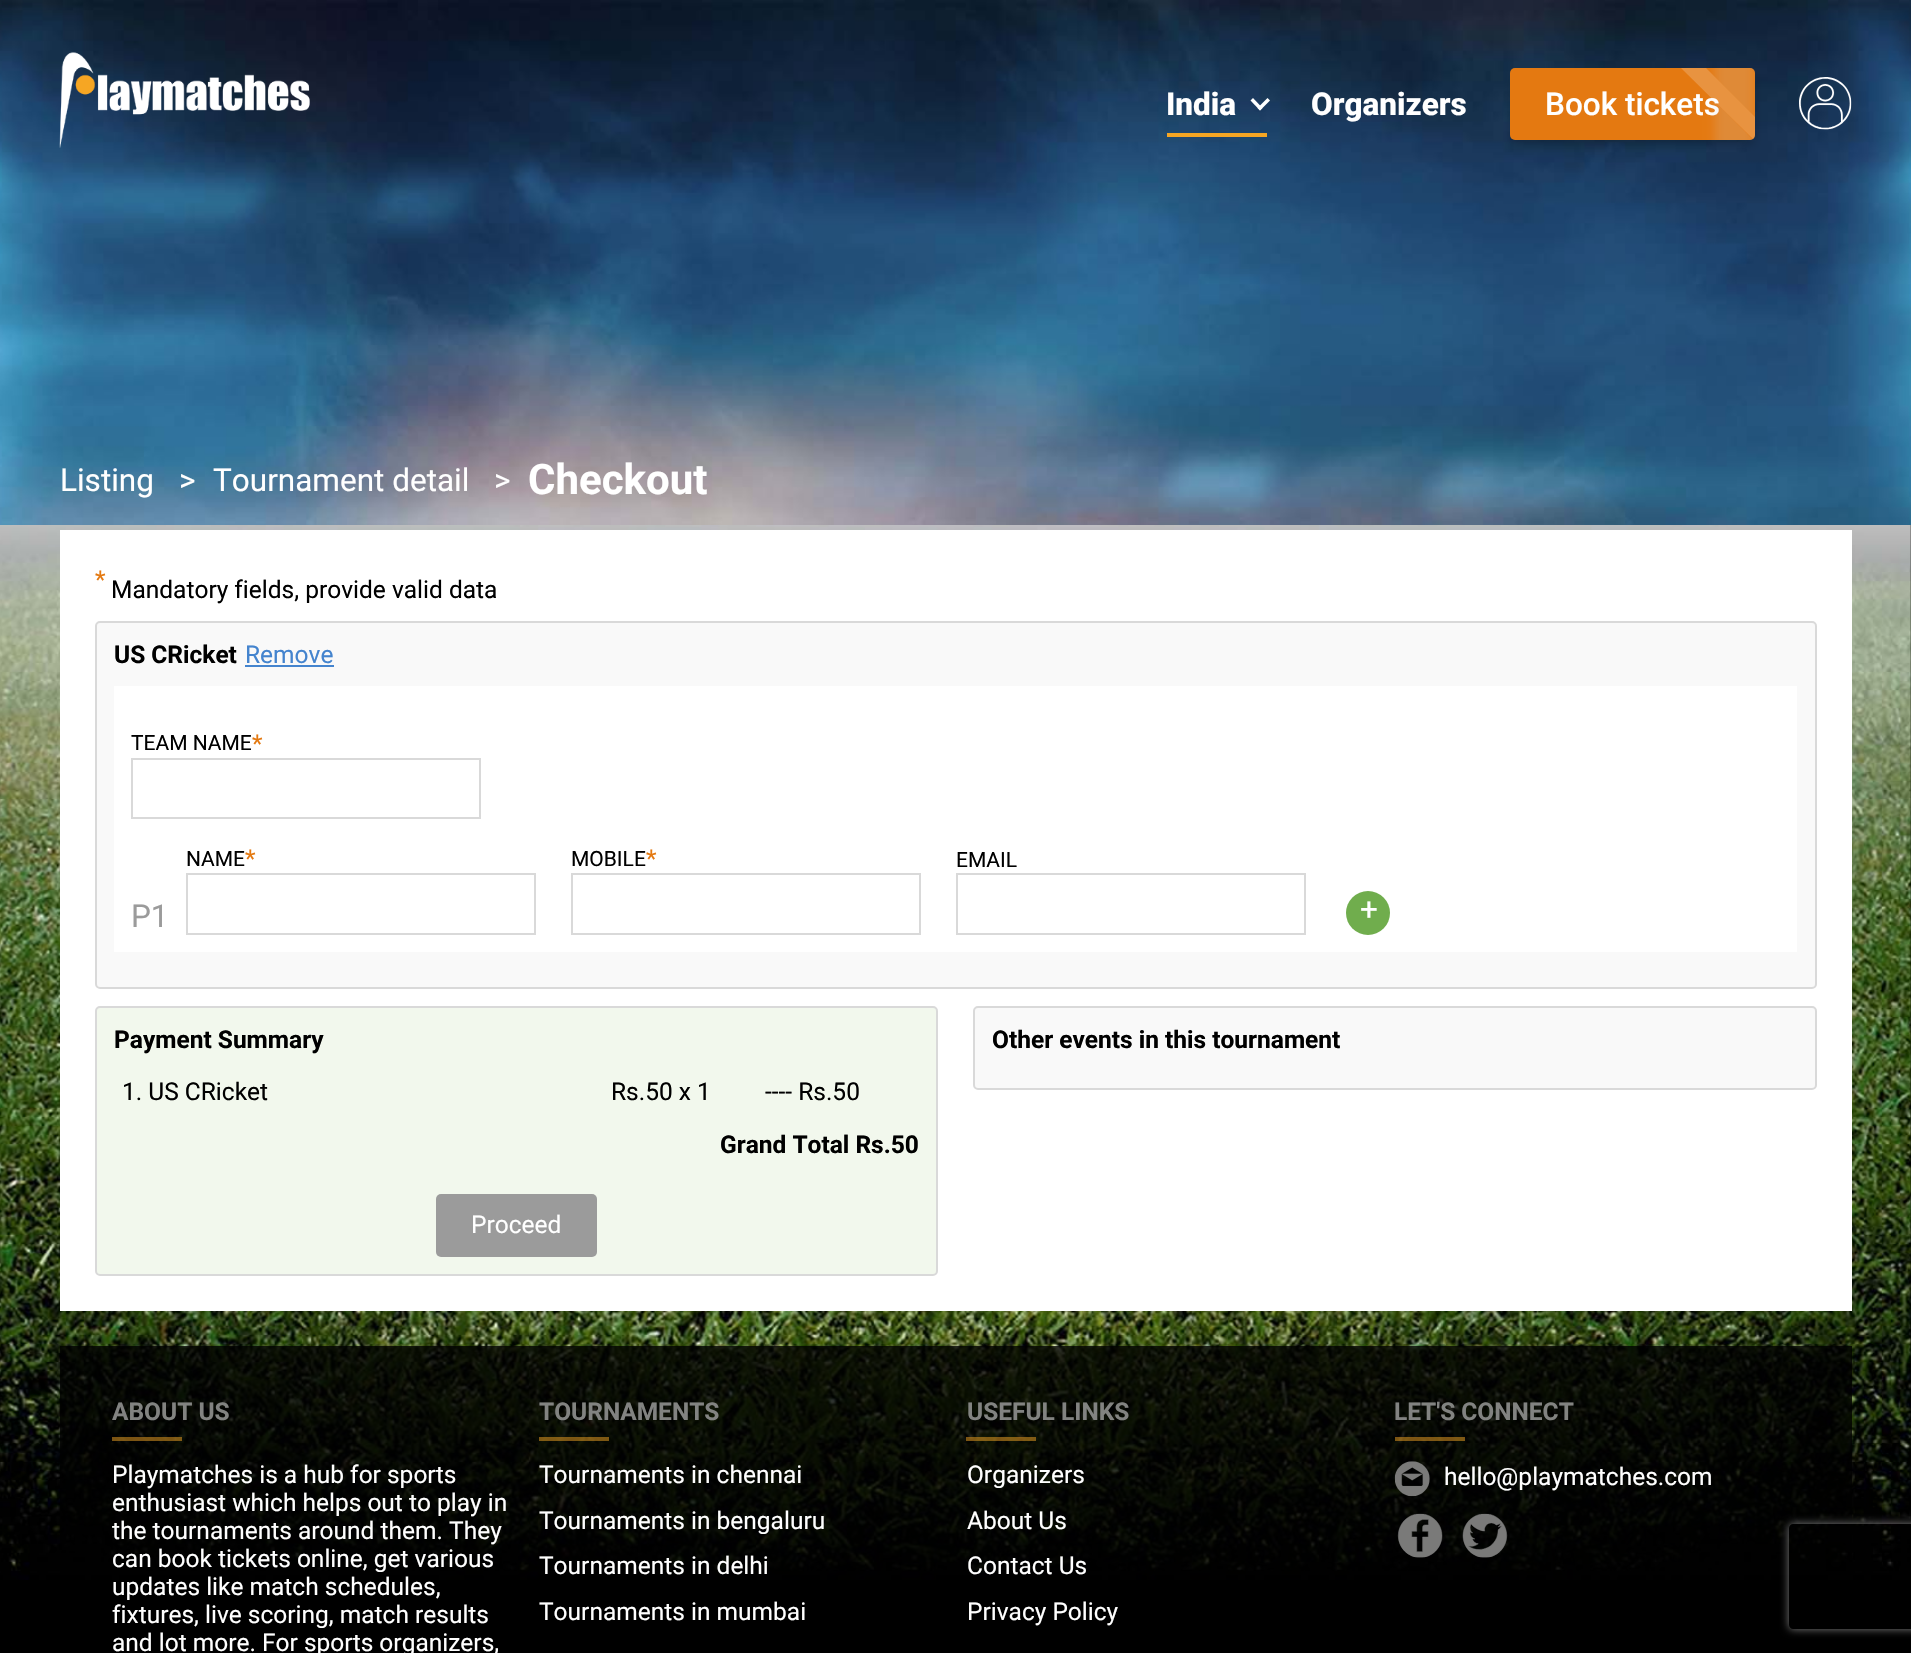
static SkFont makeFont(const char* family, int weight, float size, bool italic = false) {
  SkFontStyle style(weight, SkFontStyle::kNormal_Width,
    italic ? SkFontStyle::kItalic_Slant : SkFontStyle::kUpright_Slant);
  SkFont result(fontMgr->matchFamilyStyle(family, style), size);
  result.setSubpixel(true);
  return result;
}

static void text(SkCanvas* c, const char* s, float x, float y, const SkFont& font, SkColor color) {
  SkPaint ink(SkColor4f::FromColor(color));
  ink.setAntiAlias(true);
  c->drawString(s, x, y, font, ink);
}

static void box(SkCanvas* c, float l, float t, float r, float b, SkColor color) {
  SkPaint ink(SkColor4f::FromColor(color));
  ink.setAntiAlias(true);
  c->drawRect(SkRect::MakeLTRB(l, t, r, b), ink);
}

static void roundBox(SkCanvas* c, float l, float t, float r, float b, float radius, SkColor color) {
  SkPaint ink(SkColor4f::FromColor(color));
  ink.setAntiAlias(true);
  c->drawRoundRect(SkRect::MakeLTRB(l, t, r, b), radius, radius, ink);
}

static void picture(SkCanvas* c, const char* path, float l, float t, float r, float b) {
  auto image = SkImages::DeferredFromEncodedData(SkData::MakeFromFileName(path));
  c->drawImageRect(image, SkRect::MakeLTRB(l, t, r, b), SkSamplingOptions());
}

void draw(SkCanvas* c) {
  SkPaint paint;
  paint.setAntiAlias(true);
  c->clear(0xff000000);
  picture(c, "img_01.png", 0, 525, 1911, 1580);
  picture(c, "img_02.png", 0, 0, 1911, 525);
  picture(c, "img_03.png", 59, 52, 310, 148);
  SkFont face1 = makeFont("Roboto", 800, 31.5f);
  text(c, "India", 1166, 115, face1, 0xffffffff);
  paint.setColor(0xffffffff);
  c->drawPath(SkPathBuilder().moveTo(1267.5f, 98).lineTo(1270, 100.5f).lineTo(1260, 110.5f).lineTo(1257.5f, 108).close().detach(), paint);
  c->drawPath(SkPathBuilder().moveTo(1253, 98).lineTo(1262.5f, 108).lineTo(1260, 110.5f).lineTo(1250.5f, 100.5f).close().detach(), paint);
  box(c, 1167, 133, 1267, 137, 0xfff6a623);
  text(c, "Organizers", 1311, 115, face1, 0xffffffff);
  paint.setColor(0x33000000);
  paint.setMaskFilter(SkMaskFilter::MakeBlur(kNormal_SkBlurStyle, 4.5f));
  c->drawRoundRect(SkRect::MakeLTRB(1512, 75, 1754, 144), 4, 4, paint);
  paint.setMaskFilter(nullptr);
  roundBox(c, 1510, 68, 1755, 140, 5, 0xffe47911);
  SkFont face2 = makeFont("Roboto", 500, 31.5f);
  text(c, "Book tickets", 1545, 115, face2, 0xffffffff);
  c->save();
  c->clipPath(SkPathBuilder().moveTo(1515, 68).lineTo(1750, 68).cubicTo(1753, 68, 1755, 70, 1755, 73).lineTo(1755, 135).cubicTo(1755, 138, 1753, 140, 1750, 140).lineTo(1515, 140).cubicTo(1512, 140, 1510, 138, 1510, 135).lineTo(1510, 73).cubicTo(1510, 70, 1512, 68, 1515, 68).close().detach(), true);
  c->clipPath(SkPathBuilder(SkPathFillType::kEvenOdd).moveTo(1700, 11).lineTo(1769, 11).lineTo(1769, 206).lineTo(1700, 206).close().moveTo(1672, 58.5f).lineTo(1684.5f, 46.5f).lineTo(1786, 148).lineTo(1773.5f, 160).close().detach(), true);
  paint.setColor(0x33cccccc);
  paint.setMaskFilter(SkMaskFilter::MakeBlur(kNormal_SkBlurStyle, 4.5f));
  c->drawRect(SkRect::MakeLTRB(1715, 26, 1754, 191), paint);
  paint.setMaskFilter(nullptr);
  c->restore();
  paint.setColor(0x33f9f9f9);
  c->drawPath(SkPathBuilder().moveTo(1753, 139).lineTo(1681, 68).lineTo(1706, 68).lineTo(1755, 117).lineTo(1755, 135).cubicTo(1755, 137, 1754, 138, 1753, 139).close().detach(), paint);
  picture(c, "img_04.png", 1799, 77, 1852, 130);
  SkFont face3 = makeFont("Roboto", 400, 31.5f);
  text(c, "Listing", 60, 491, face3, 0xffffffff);
  text(c, ">", 179, 491, face3, 0xffffffff);
  text(c, "Tournament detail", 213, 491, face3, 0xffffffff);
  text(c, ">", 494, 491, face3, 0xffffffff);
  SkFont face4 = makeFont("Roboto", 700, 42);
  text(c, "Checkout", 528, 494, face4, 0xffffffff);
  box(c, 60, 530, 1852, 1311, 0xffffffff);
  SkFont face5 = makeFont("Roboto", 400, 24.5f);
  text(c, "*", 95, 588, face5, 0xffe47911);
  text(c, "Mandatory fields, provide valid data", 111, 598, face5, 0xff000000);
  paint.setColor(0xfff9f9f9);
  c->drawRoundRect(SkRect::MakeLTRB(96, 622, 1816, 988), 4, 4, paint);
  paint.setStyle(SkPaint::kStroke_Style);
  paint.setStrokeWidth(2);
  paint.setColor(0xffd9d9d9);
  c->drawRoundRect(SkRect::MakeLTRB(96, 622, 1816, 988), 4, 4, paint);
  SkFont face6 = makeFont("Roboto", 700, 24.5f);
  text(c, "US CRicket", 114, 663, face6, 0xff000000);
  text(c, "Remove", 245, 663, face5, 0xff4484ce);
  box(c, 245, 665, 334, 667, 0xff4484ce);
  box(c, 114, 686, 1797, 952, 0xffffffff);
  SkFont face7 = makeFont("Roboto", 400, 21);
  text(c, "TEAM NAME", 131, 750, face7, 0xff000000);
  text(c, "*", 252, 752, face5, 0xffe47911);
  c->drawRect(SkRect::MakeLTRB(132, 759, 480, 818), paint);
  text(c, "NAME", 186, 866, face7, 0xff000000);
  text(c, "*", 245, 867, face5, 0xffe47911);
  c->drawRect(SkRect::MakeLTRB(187, 874, 535, 934), paint);
  text(c, "MOBILE", 571, 866, face7, 0xff000000);
  text(c, "*", 646, 867, face5, 0xffe47911);
  c->drawRect(SkRect::MakeLTRB(572, 874, 920, 934), paint);
  text(c, "EMAIL", 956, 867, face7, 0xff000000);
  c->drawRect(SkRect::MakeLTRB(957, 874, 1305, 934), paint);
  text(c, "P1", 131, 927, face3, 0xff9b9b9b);
  paint.setStyle(SkPaint::kFill_Style);
  paint.setColor(0xff70ad4d);
  c->drawCircle(1368, 913, 22, paint);
  text(c, "+", 1360, 920, face3, 0xffffffff);
  paint.setColor(0xfff2f8ed);
  c->drawRoundRect(SkRect::MakeLTRB(96, 1007, 937, 1275), 4, 4, paint);
  paint.setStyle(SkPaint::kStroke_Style);
  paint.setColor(0xffd9d9d9);
  c->drawRoundRect(SkRect::MakeLTRB(96, 1007, 937, 1275), 4, 4, paint);
  text(c, "Payment Summary", 114, 1048, face6, 0xff000000);
  text(c, "1. US CRicket", 122, 1100, face5, 0xff000000);
  text(c, "Rs.50 x 1", 611, 1100, face5, 0xff000000);
  text(c, "---- Rs.50", 765, 1100, face5, 0xff000000);
  text(c, "Grand Total Rs.50", 720, 1153, face6, 0xff000000);
  roundBox(c, 436, 1194, 597, 1257, 5, 0xff9b9b9b);
  text(c, "Proceed", 471, 1233, face5, 0xffffffff);
  paint.setStyle(SkPaint::kFill_Style);
  paint.setColor(0xfff9f9f9);
  c->drawRoundRect(SkRect::MakeLTRB(974, 1007, 1816, 1089), 4, 4, paint);
  paint.setStyle(SkPaint::kStroke_Style);
  paint.setColor(0xffd9d9d9);
  c->drawRoundRect(SkRect::MakeLTRB(974, 1007, 1816, 1089), 4, 4, paint);
  text(c, "Other events in this tournament", 992, 1048, face6, 0xff000000);
  box(c, 60, 1346, 1852, 1580, 0xcc000000);
  c->save();
  c->clipPath(SkPathBuilder(SkPathFillType::kEvenOdd).moveTo(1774, 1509).lineTo(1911, 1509).lineTo(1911, 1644).lineTo(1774, 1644).close().moveTo(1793, 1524).lineTo(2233, 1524).cubicTo(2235, 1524, 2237, 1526, 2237, 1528).lineTo(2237, 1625).cubicTo(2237, 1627, 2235, 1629, 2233, 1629).lineTo(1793, 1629).cubicTo(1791, 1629, 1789, 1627, 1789, 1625).lineTo(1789, 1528).cubicTo(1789, 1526, 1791, 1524, 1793, 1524).close().detach(), true);
  paint.setStyle(SkPaint::kFill_Style);
  paint.setColor(0xff808080);
  paint.setMaskFilter(SkMaskFilter::MakeBlur(kNormal_SkBlurStyle, 4.5f));
  c->drawRoundRect(SkRect::MakeLTRB(1789, 1524, 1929, 1629), 4, 4, paint);
  paint.setMaskFilter(nullptr);
  c->restore();
  text(c, "ABOUT US", 112, 1420, face6, 0xff828381);
  box(c, 112, 1437, 182, 1441, 0x80f6a623);
  text(c, "Playmatches is a hub for sports", 112, 1483, face5, 0xffffffff);
  text(c, "enthusiast which helps out to play in", 112, 1511, face5, 0xffffffff);
  text(c, "the tournaments around them. They", 112, 1539, face5, 0xffffffff);
  text(c, "can book tickets online, get various", 112, 1567, face5, 0xffffffff);
  text(c, "updates like match schedules,", 112, 1595, face5, 0xffffffff);
  text(c, "fixtures, live scoring, match results", 112, 1623, face5, 0xffffffff);
  text(c, "and lot more. For sports organizers,", 112, 1651, face5, 0xffffffff);
  text(c, "TOURNAMENTS", 539, 1420, face6, 0xff828381);
  box(c, 539, 1437, 609, 1441, 0x80f6a623);
  text(c, "Tournaments in chennai", 539, 1483, face5, 0xffffffff);
  text(c, "Tournaments in bengaluru", 539, 1529, face5, 0xffffffff);
  text(c, "Tournaments in delhi", 539, 1574, face5, 0xffffffff);
  text(c, "Tournaments in mumbai", 539, 1620, face5, 0xffffffff);
  text(c, "USEFUL LINKS", 967, 1420, face6, 0xff828381);
  box(c, 966, 1437, 1036, 1441, 0x80f6a623);
  text(c, "Organizers", 967, 1483, face5, 0xffffffff);
  text(c, "About Us", 967, 1529, face5, 0xffffffff);
  text(c, "Contact Us", 967, 1574, face5, 0xffffffff);
  text(c, "Privacy Policy", 967, 1620, face5, 0xffffffff);
  text(c, "LET'S CONNECT", 1394, 1420, face6, 0xff828381);
  box(c, 1395, 1437, 1465, 1441, 0x80f6a623);
  picture(c, "img_05.png", 1394, 1461, 1430, 1497);
  text(c, "hello@playmatches.com", 1444, 1485, face5, 0xffffffff);
  picture(c, "img_06.png", 1397, 1513, 1443, 1558);
  picture(c, "img_07.png", 1462, 1513, 1508, 1558);
}
